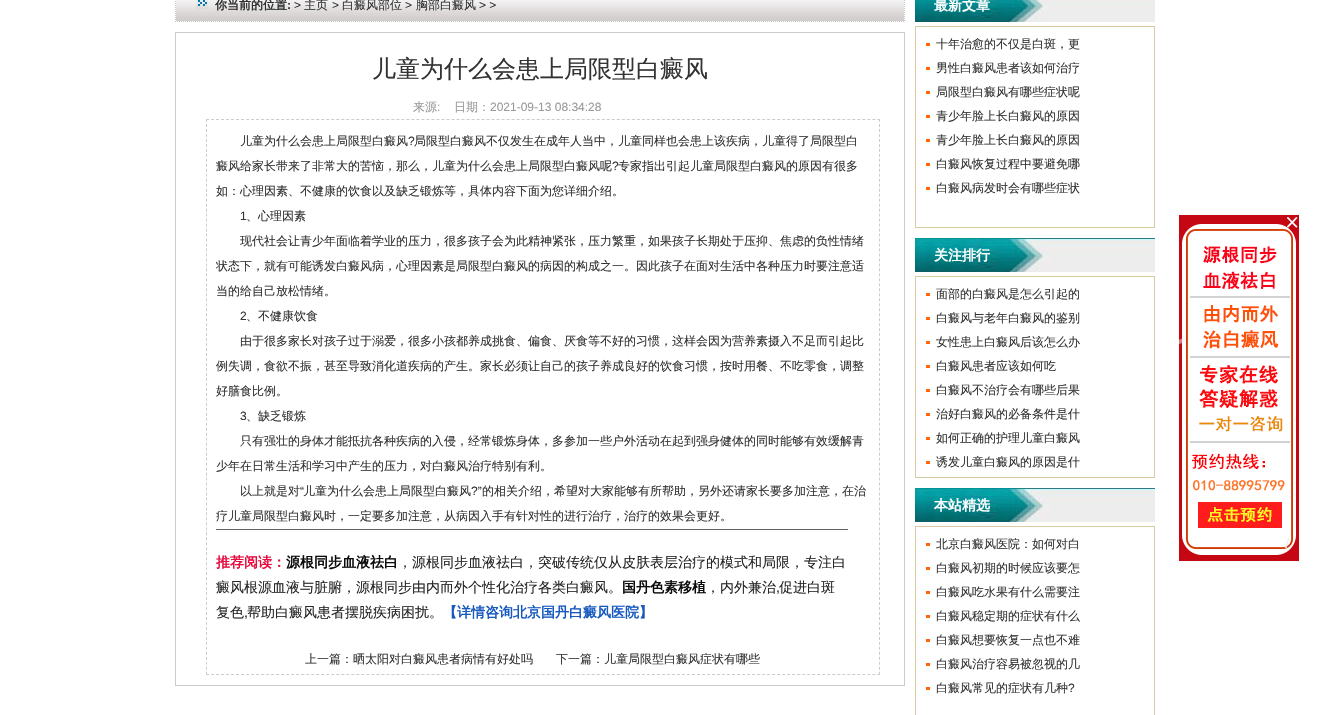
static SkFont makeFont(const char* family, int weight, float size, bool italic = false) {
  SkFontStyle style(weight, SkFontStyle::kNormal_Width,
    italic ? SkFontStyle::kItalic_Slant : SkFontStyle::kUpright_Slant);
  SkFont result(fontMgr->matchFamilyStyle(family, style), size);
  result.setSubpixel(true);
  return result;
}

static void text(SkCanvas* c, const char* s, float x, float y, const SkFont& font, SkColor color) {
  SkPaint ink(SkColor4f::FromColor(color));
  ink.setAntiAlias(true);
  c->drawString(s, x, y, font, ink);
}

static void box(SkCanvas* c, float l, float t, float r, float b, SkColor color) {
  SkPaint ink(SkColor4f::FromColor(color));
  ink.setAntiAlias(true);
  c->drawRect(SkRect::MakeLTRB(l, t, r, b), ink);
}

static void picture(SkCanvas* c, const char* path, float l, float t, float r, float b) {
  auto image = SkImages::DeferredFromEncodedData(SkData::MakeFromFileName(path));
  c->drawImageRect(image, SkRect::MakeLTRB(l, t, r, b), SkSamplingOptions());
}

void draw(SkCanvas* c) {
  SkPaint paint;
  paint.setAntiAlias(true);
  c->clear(0xffffffff);
  picture(c, "img_01.png", 175, 0, 905, 22);
  SkFont face1 = makeFont("WenQuanYi Zen Hei", 700, 12);
  text(c, "你当前的位置", 215, 9, face1, 0xff333333);
  SkFont face2 = makeFont("Liberation Sans", 700, 12);
  text(c, ":", 287, 9, face2, 0xff333333);
  SkFont face3 = makeFont("Liberation Sans", 400, 12);
  text(c, ">", 294, 9, face3, 0xff333333);
  SkFont face4 = makeFont("WenQuanYi Zen Hei", 500, 12);
  text(c, "主页", 304, 9, face4, 0xff333333);
  text(c, ">", 332, 9, face3, 0xff333333);
  text(c, "白癜风部位", 342, 9, face4, 0xff333333);
  text(c, ">", 405, 9, face3, 0xff333333);
  text(c, "胸部白癜风", 416, 9, face4, 0xff333333);
  text(c, "> >", 479, 9, face3, 0xff333333);
  paint.setStyle(SkPaint::kStroke_Style);
  paint.setStrokeWidth(1);
  paint.setColor(0xffcccccc);
  c->drawRect(SkRect::MakeLTRB(175.5f, 32.5f, 904.5f, 685.5f), paint);
  SkFont face5 = makeFont("WenQuanYi Zen Hei", 500, 24);
  text(c, "儿童为什么会患上局限型白癜风", 372, 77, face5, 0xff333333);
  text(c, "来源", 413, 111, face4, 0xff999999);
  text(c, ":", 437, 111, face3, 0xff999999);
  text(c, "日期：", 454, 111, face4, 0xff999999);
  text(c, "2021-09-13 08:34:28", 490, 111, face3, 0xff999999);
  text(c, "儿童为什么会患上局限型白癜风", 240, 145, face4, 0xff333333);
  text(c, "?", 408, 145, face3, 0xff333333);
  text(c, "局限型白癜风不仅发生在成年人当中，儿童同样也会患上该疾病，儿童得了局限型白", 414, 145, face4, 0xff333333);
  text(c, "癜风给家长带来了非常大的苦恼，那么，儿童为什么会患上局限型白癜风呢", 216, 170, face4, 0xff333333);
  text(c, "?", 612, 170, face3, 0xff333333);
  text(c, "专家指出引起儿童局限型白癜风的原因有很多", 618, 170, face4, 0xff333333);
  text(c, "如：心理因素、不健康的饮食以及缺乏锻炼等，具体内容下面为您详细介绍。", 216, 195, face4, 0xff333333);
  text(c, "1", 240, 220, face3, 0xff333333);
  text(c, "、心理因素", 246, 220, face4, 0xff333333);
  text(c, "现代社会让青少年面临着学业的压力，很多孩子会为此精神紧张，压力繁重，如果孩子长期处于压抑、焦虑的负性情绪", 240, 245, face4, 0xff333333);
  text(c, "状态下，就有可能诱发白癜风病，心理因素是局限型白癜风的病因的构成之一。因此孩子在面对生活中各种压力时要注意适", 216, 270, face4, 0xff333333);
  text(c, "当的给自己放松情绪。", 216, 295, face4, 0xff333333);
  text(c, "2", 240, 320, face3, 0xff333333);
  text(c, "、不健康饮食", 246, 320, face4, 0xff333333);
  text(c, "由于很多家长对孩子过于溺爱，很多小孩都养成挑食、偏食、厌食等不好的习惯，这样会因为营养素摄入不足而引起比", 240, 345, face4, 0xff333333);
  text(c, "例失调，食欲不振，甚至导致消化道疾病的产生。家长必须让自己的孩子养成良好的饮食习惯，按时用餐、不吃零食，调整", 216, 370, face4, 0xff333333);
  text(c, "好膳食比例。", 216, 395, face4, 0xff333333);
  text(c, "3", 240, 420, face3, 0xff333333);
  text(c, "、缺乏锻炼", 246, 420, face4, 0xff333333);
  text(c, "只有强壮的身体才能抵抗各种疾病的入侵，经常锻炼身体，多参加一些户外活动在起到强身健体的同时能够有效缓解青", 240, 445, face4, 0xff333333);
  text(c, "少年在日常生活和学习中产生的压力，对白癜风治疗特别有利。", 216, 470, face4, 0xff333333);
  text(c, "以上就是对", 240, 495, face4, 0xff333333);
  text(c, "“", 300, 495, face3, 0xff333333);
  text(c, "儿童为什么会患上局限型白癜风", 303, 495, face4, 0xff333333);
  text(c, "?”", 471, 495, face3, 0xff333333);
  text(c, "的相关介绍，希望对大家能够有所帮助，另外还请家长要多加注意，在治", 482, 495, face4, 0xff333333);
  text(c, "疗儿童局限型白癜风时，一定要多加注意，从病因入手有针对性的进行治疗，治疗的效果会更好。", 216, 520, face4, 0xff333333);
  box(c, 216, 529, 848, 530, 0xff646363);
  SkFont face6 = makeFont("WenQuanYi Zen Hei", 700, 14);
  text(c, "推荐阅读：", 216, 567, face6, 0xffe70d40);
  text(c, "源根同步血液祛白", 286, 567, face6, 0xff0b0b0b);
  SkFont face7 = makeFont("WenQuanYi Zen Hei", 500, 14);
  text(c, "，源根同步血液祛白，突破传统仅从皮肤表层治疗的模式和局限，专注白", 398, 567, face7, 0xff262626);
  text(c, "癜风根源血液与脏腑，源根同步由内而外个性化治疗各类白癜风。", 216, 592, face7, 0xff262626);
  text(c, "国丹色素移植", 622, 592, face6, 0xff0b0b0b);
  text(c, "，内外兼治", 706, 592, face7, 0xff262626);
  SkFont face8 = makeFont("Liberation Sans", 400, 14);
  text(c, ",", 776, 592, face8, 0xff262626);
  text(c, "促进白斑", 779, 592, face7, 0xff262626);
  text(c, "复色", 216, 617, face7, 0xff262626);
  text(c, ",", 244, 617, face8, 0xff262626);
  text(c, "帮助白癜风患者摆脱疾病困扰。", 247, 617, face7, 0xff262626);
  text(c, "【详情咨询北京国丹白癜风医院】", 443, 617, face6, 0xff1759bf);
  paint.setPathEffect(SkDashPathEffect::Make({{3, 2.01f}}, 0));
  c->drawPath(SkPathBuilder().moveTo(206, 119.5f).lineTo(880, 119.5f).detach(), paint);
  paint.setPathEffect(nullptr);
  paint.setPathEffect(SkDashPathEffect::Make({{3, 1.98f}}, 0));
  c->drawPath(SkPathBuilder().moveTo(879.5f, 119).lineTo(879.5f, 675).detach(), paint);
  paint.setPathEffect(nullptr);
  paint.setPathEffect(SkDashPathEffect::Make({{3, 2.01f}}, 0));
  c->drawPath(SkPathBuilder().moveTo(206, 674.5f).lineTo(880, 674.5f).detach(), paint);
  paint.setPathEffect(nullptr);
  paint.setPathEffect(SkDashPathEffect::Make({{3, 1.98f}}, 0));
  c->drawPath(SkPathBuilder().moveTo(206.5f, 119).lineTo(206.5f, 675).detach(), paint);
  paint.setPathEffect(nullptr);
  text(c, "上一篇：晒太阳对白癜风患者病情有好处吗", 305, 663, face4, 0xff333333);
  text(c, "下一篇：儿童局限型白癜风症状有哪些", 556, 663, face4, 0xff333333);
  picture(c, "img_02.png", 915, 0, 1155, 22);
  text(c, "最新文章", 934, 10, face6, 0xffffffff);
  paint.setColor(0xffd8cba1);
  c->drawRect(SkRect::MakeLTRB(915.5f, 26.5f, 1154.5f, 227.5f), paint);
  box(c, 926, 43, 930, 46, 0xfffe6601);
  text(c, "十年治愈的不仅是白斑，更", 936, 48, face4, 0xff333333);
  box(c, 926, 67, 930, 70, 0xfffe6601);
  text(c, "男性白癜风患者该如何治疗", 936, 72, face4, 0xff333333);
  box(c, 926, 91, 930, 94, 0xfffe6601);
  text(c, "局限型白癜风有哪些症状呢", 936, 96, face4, 0xff333333);
  box(c, 926, 115, 930, 118, 0xfffe6601);
  text(c, "青少年脸上长白癜风的原因", 936, 120, face4, 0xff333333);
  box(c, 926, 139, 930, 142, 0xfffe6601);
  text(c, "青少年脸上长白癜风的原因", 936, 144, face4, 0xff333333);
  box(c, 926, 163, 930, 166, 0xfffe6601);
  text(c, "白癜风恢复过程中要避免哪", 936, 168, face4, 0xff333333);
  box(c, 926, 187, 930, 190, 0xfffe6601);
  text(c, "白癜风病发时会有哪些症状", 936, 192, face4, 0xff333333);
  picture(c, "img_03.png", 915, 238, 1155, 272);
  text(c, "关注排行", 934, 260, face6, 0xffffffff);
  c->drawRect(SkRect::MakeLTRB(915.5f, 276.5f, 1154.5f, 477.5f), paint);
  box(c, 926, 293, 930, 296, 0xfffe6601);
  text(c, "面部的白癜风是怎么引起的", 936, 298, face4, 0xff333333);
  box(c, 926, 317, 930, 320, 0xfffe6601);
  text(c, "白癜风与老年白癜风的鉴别", 936, 322, face4, 0xff333333);
  box(c, 926, 341, 930, 344, 0xfffe6601);
  text(c, "女性患上白癜风后该怎么办", 936, 346, face4, 0xff333333);
  box(c, 926, 365, 930, 368, 0xfffe6601);
  text(c, "白癜风患者应该如何吃", 936, 370, face4, 0xff333333);
  box(c, 926, 389, 930, 392, 0xfffe6601);
  text(c, "白癜风不治疗会有哪些后果", 936, 394, face4, 0xff333333);
  box(c, 926, 413, 930, 416, 0xfffe6601);
  text(c, "治好白癜风的必备条件是什", 936, 418, face4, 0xff333333);
  box(c, 926, 437, 930, 440, 0xfffe6601);
  text(c, "如何正确的护理儿童白癜风", 936, 442, face4, 0xff333333);
  box(c, 926, 461, 930, 464, 0xfffe6601);
  text(c, "诱发儿童白癜风的原因是什", 936, 466, face4, 0xff333333);
  picture(c, "img_03.png", 915, 488, 1155, 522);
  text(c, "本站精选", 934, 510, face6, 0xffffffff);
  c->drawRect(SkRect::MakeLTRB(915.5f, 526.5f, 1154.5f, 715.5f), paint);
  box(c, 926, 543, 930, 546, 0xfffe6601);
  text(c, "北京白癜风医院：如何对白", 936, 548, face4, 0xff333333);
  box(c, 926, 567, 930, 570, 0xfffe6601);
  text(c, "白癜风初期的时候应该要怎", 936, 572, face4, 0xff333333);
  box(c, 926, 591, 930, 594, 0xfffe6601);
  text(c, "白癜风吃水果有什么需要注", 936, 596, face4, 0xff333333);
  box(c, 926, 615, 930, 618, 0xfffe6601);
  text(c, "白癜风稳定期的症状有什么", 936, 620, face4, 0xff333333);
  box(c, 926, 639, 930, 642, 0xfffe6601);
  text(c, "白癜风想要恢复一点也不难", 936, 644, face4, 0xff333333);
  box(c, 926, 663, 930, 666, 0xfffe6601);
  text(c, "白癜风治疗容易被忽视的几", 936, 668, face4, 0xff333333);
  box(c, 926, 687, 930, 690, 0xfffe6601);
  text(c, "白癜风常见的症状有几种", 936, 692, face4, 0xff333333);
  text(c, "?", 1068, 692, face3, 0xff333333);
  picture(c, "img_04.png", 1179, 215, 1299, 561);
}
